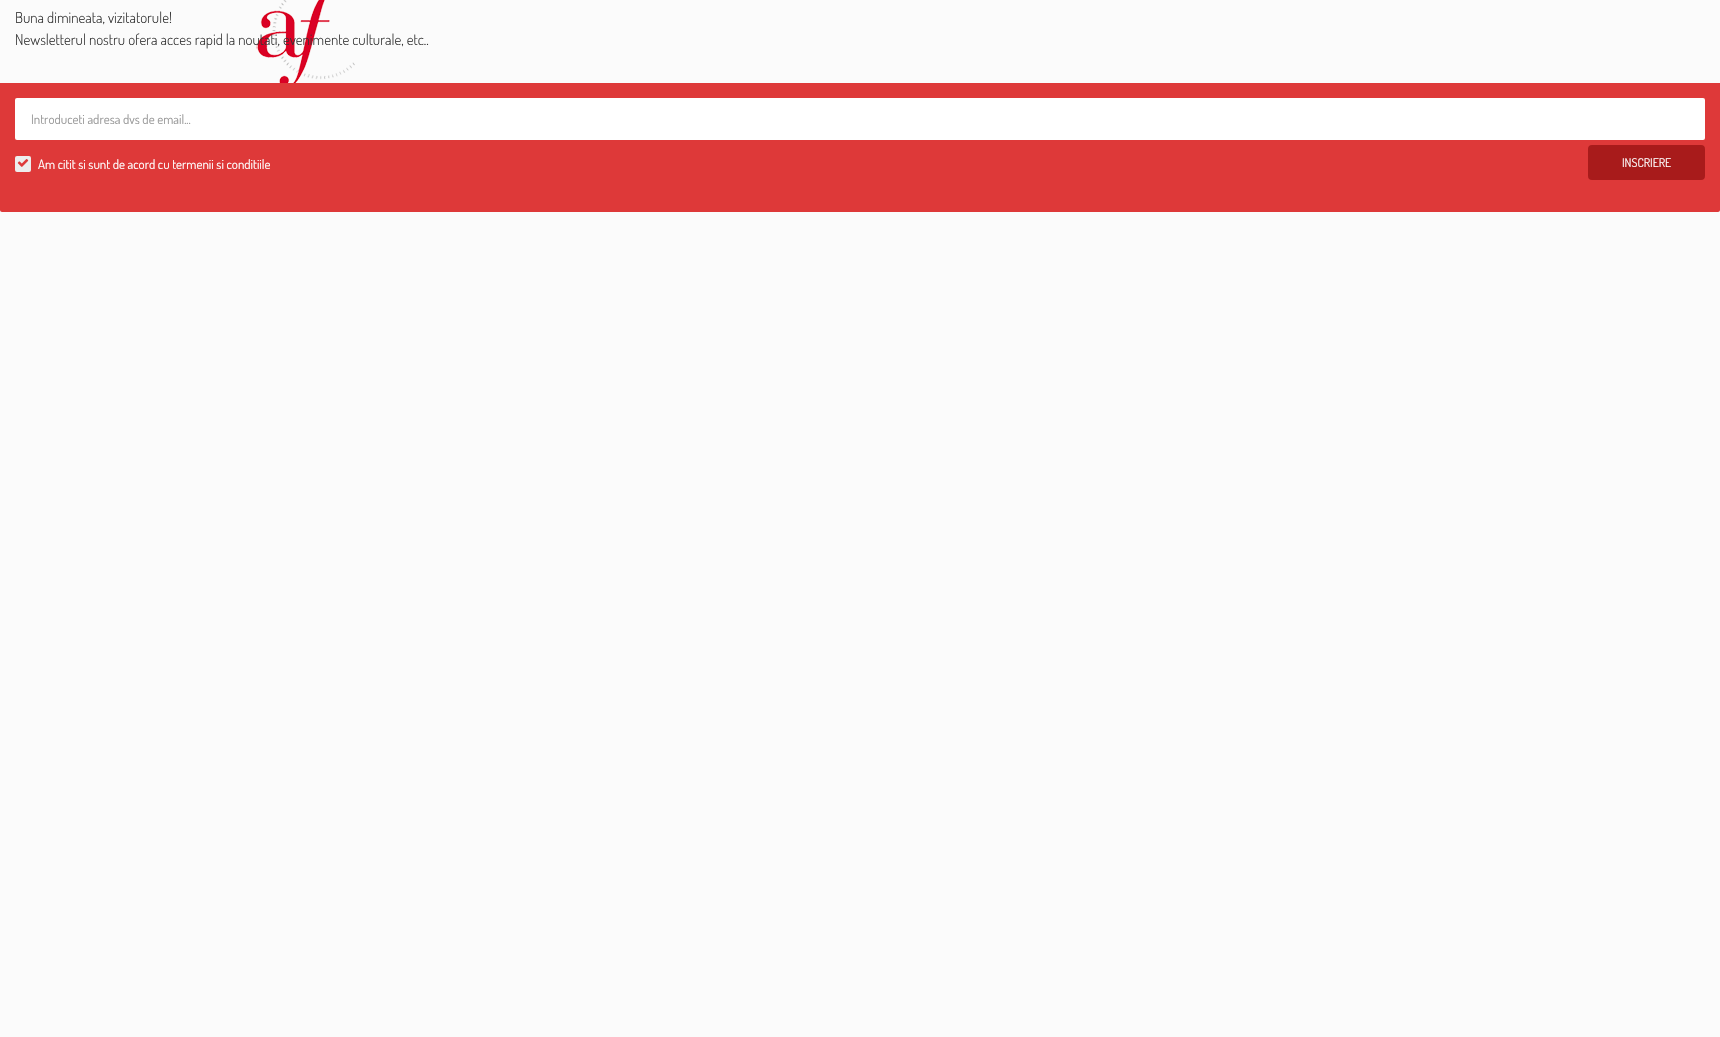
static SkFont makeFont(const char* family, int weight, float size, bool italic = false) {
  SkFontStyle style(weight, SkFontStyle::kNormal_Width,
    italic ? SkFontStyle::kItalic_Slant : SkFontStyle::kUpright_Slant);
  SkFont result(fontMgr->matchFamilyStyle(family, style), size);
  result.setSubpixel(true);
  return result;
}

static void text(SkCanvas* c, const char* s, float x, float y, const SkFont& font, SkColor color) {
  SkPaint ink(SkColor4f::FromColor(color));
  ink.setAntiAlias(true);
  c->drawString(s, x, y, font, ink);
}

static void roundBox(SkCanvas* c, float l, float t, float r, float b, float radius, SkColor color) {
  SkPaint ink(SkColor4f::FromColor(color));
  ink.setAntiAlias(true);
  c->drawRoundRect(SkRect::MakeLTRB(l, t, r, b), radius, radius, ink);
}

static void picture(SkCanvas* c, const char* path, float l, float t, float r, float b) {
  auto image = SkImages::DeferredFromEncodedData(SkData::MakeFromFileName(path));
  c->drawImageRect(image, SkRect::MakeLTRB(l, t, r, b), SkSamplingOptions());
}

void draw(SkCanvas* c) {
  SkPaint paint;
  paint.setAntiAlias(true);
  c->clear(0xfffbfbfb);
  picture(c, "img_01.png", 256, 0, 355, 83);
  SkFont face1 = makeFont("Dosis", 300, 15);
  text(c, "Buna dimineata, vizitatorule!", 15, 23, face1, 0xff333333);
  text(c, "Newsletterul nostru ofera acces rapid la noutati, evenimente culturale, etc..", 15, 45, face1, 0xff333333);
  paint.setColor(0xffde3939);
  c->drawPath(SkPathBuilder().moveTo(0, 83).lineTo(1720, 83).lineTo(1720, 210).cubicTo(1720, 211, 1719, 212, 1718, 212).lineTo(2, 212).cubicTo(1, 212, 0, 211, 0, 210).close().detach(), paint);
  roundBox(c, 15, 98, 1705, 140, 2, 0xffffffff);
  SkFont face2 = makeFont("Dosis", 400, 13);
  text(c, "Introduceti adresa dvs de email...", 31, 124, face2, 0xff999999);
  roundBox(c, 15, 156, 31, 172, 2, 0xffededed);
  picture(c, "img_02.png", 17, 159, 29, 167);
  text(c, "Am citit si sunt de acord cu termenii si conditiile", 38, 169, face2, 0xffffffff);
  paint.setColor(0xffa81b1b);
  c->drawRoundRect(SkRect::MakeLTRB(1589, 146, 1704, 179), 3, 3, paint);
  paint.setStyle(SkPaint::kStroke_Style);
  paint.setStrokeWidth(2);
  c->drawRoundRect(SkRect::MakeLTRB(1589, 146, 1704, 179), 3, 3, paint);
  SkFont face3 = makeFont("Dosis", 400, 12);
  text(c, "INSCRIERE", 1622, 167, face3, 0xffffffff);
}
